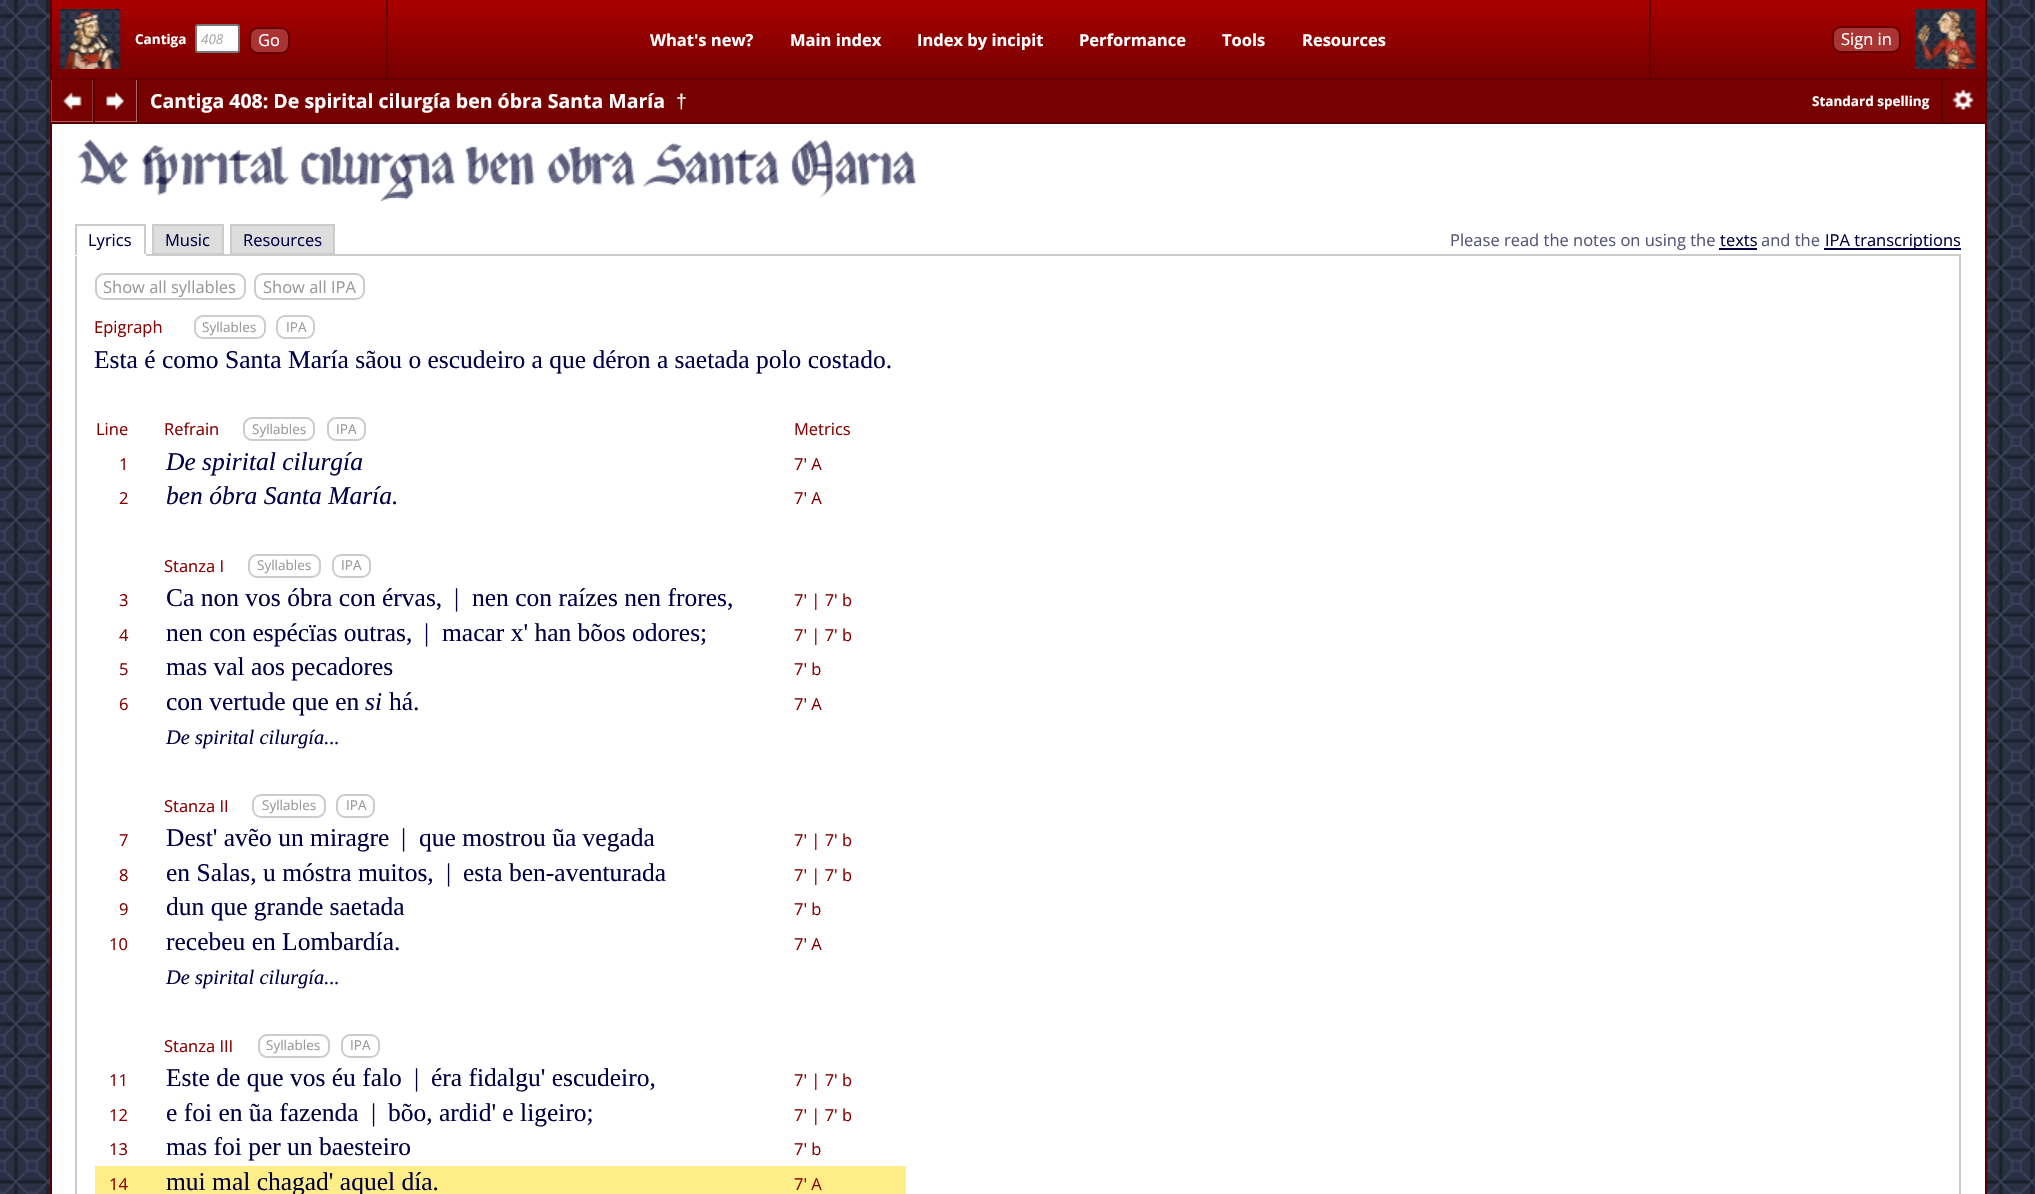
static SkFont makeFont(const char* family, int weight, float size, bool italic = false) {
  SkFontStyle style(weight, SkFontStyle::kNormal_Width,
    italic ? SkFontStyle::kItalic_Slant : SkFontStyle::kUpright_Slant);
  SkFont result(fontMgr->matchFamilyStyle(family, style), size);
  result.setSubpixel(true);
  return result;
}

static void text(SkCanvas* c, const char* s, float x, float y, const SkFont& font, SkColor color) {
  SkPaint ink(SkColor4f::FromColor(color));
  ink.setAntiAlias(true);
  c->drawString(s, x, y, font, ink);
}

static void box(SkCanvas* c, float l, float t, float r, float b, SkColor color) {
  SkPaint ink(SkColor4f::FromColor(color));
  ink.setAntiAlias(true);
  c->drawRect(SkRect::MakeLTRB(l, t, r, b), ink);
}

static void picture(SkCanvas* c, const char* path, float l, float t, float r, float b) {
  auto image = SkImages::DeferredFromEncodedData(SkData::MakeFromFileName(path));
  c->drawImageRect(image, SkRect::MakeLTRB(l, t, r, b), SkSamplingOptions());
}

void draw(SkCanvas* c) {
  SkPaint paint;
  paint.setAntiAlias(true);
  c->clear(0xffffffff);
  picture(c, "img_01.png", 0, 0, 2035, 1194);
  {
    const SkColor colors[] = {0xffaa0000, 0xff770000};
    const float stops[] = {0, 1};
    const SkPoint ends[] = {{1018, 0}, {1018, 78}};
    paint.setShader(SkGradientShader::MakeLinear(ends, colors, stops, 2, SkTileMode::kClamp));
    paint.setAlpha(255);
  }
  c->drawRect(SkRect::MakeLTRB(52, 0, 1985, 78), paint);
  box(c, 1985, 0, 1987, 123, 0xff550000);
  box(c, 50, 78, 1986, 80, 0xff660000);
  box(c, 50, 0, 52, 80, 0xff550000);
  picture(c, "img_02.png", 59, 9, 121, 69);
  SkFont face1 = makeFont("Open Sans", 700, 13.5f);
  text(c, "Cantiga", 135, 44, face1, 0xffffffff);
  paint.setShader(nullptr);
  paint.setColor(0xffffffff);
  c->drawRoundRect(SkRect::MakeLTRB(196, 25, 239, 52), 2, 2, paint);
  paint.setStyle(SkPaint::kStroke_Style);
  paint.setStrokeWidth(2);
  paint.setColor(0xff767676);
  c->drawRoundRect(SkRect::MakeLTRB(196, 25, 239, 52), 2, 2, paint);
  SkFont face2 = makeFont("Open Sans", 400, 13.5f, true);
  text(c, "408", 201, 44, face2, 0xffaaaaaa);
  paint.setStyle(SkPaint::kFill_Style);
  paint.setColor(0xffaa3333);
  c->drawRoundRect(SkRect::MakeLTRB(250, 28, 289, 53), 8, 8, paint);
  paint.setStyle(SkPaint::kStroke_Style);
  paint.setColor(0xff660000);
  c->drawRoundRect(SkRect::MakeLTRB(250, 28, 289, 53), 8, 8, paint);
  SkFont face3 = makeFont("Open Sans", 400, 16.5f);
  text(c, "Go", 258, 46, face3, 0xffffffff);
  box(c, 1649, 0, 1651, 80, 0xff660000);
  box(c, 386, 0, 388, 80, 0xff660000);
  SkFont face4 = makeFont("Open Sans", 700, 16.5f);
  text(c, "What's new?", 650, 46, face4, 0xffffffff);
  text(c, "Main index", 790, 46, face4, 0xffffffff);
  text(c, "Index by incipit", 917, 46, face4, 0xffffffff);
  text(c, "Performance", 1079, 46, face4, 0xffffffff);
  text(c, "Tools", 1222, 46, face4, 0xffffffff);
  text(c, "Resources", 1302, 46, face4, 0xffffffff);
  paint.setStyle(SkPaint::kFill_Style);
  paint.setColor(0xffaa3333);
  c->drawRoundRect(SkRect::MakeLTRB(1833, 27, 1900, 52), 8, 8, paint);
  paint.setStyle(SkPaint::kStroke_Style);
  paint.setColor(0xff660000);
  c->drawRoundRect(SkRect::MakeLTRB(1833, 27, 1900, 52), 8, 8, paint);
  text(c, "Sign in", 1841, 45, face3, 0xffffffff);
  picture(c, "img_03.png", 1915, 9, 1976, 69);
  box(c, 139, 80, 1985, 122, 0xff770000);
  box(c, 1985, 123, 1987, 1194, 0xff550000);
  box(c, 50, 122, 1986, 124, 0xff550000);
  box(c, 50, 80, 52, 123, 0xff550000);
  box(c, 51, 80, 93, 122, 0xffffc0cb);
  box(c, 95, 80, 137, 122, 0xffffc0cb);
  picture(c, "img_05.png", 94, 79, 137, 122);
  box(c, 93, 80, 95, 123, 0xff550000);
  picture(c, "img_04.png", 50, 79, 93, 122);
  box(c, 137, 80, 139, 123, 0xff550000);
  SkFont face5 = makeFont("Open Sans", 700, 19.5f);
  text(c, "Cantiga 408: De spirital cilurgía ben óbra Santa María", 150, 108, face5, 0xffffffff);
  SkFont face6 = makeFont("Liberation Sans", 400, 19.5f);
  text(c, "†", 676, 108, face6, 0xffffffff);
  text(c, "Standard spelling", 1812, 106, face1, 0xffffffff);
  box(c, 1941, 80, 1943, 123, 0xff550000);
  picture(c, "img_06.png", 1943, 79, 1984, 110);
  box(c, 52, 124, 1985, 1194, 0xffffffff);
  box(c, 50, 124, 52, 1194, 0xff550000);
  picture(c, "img_07.png", 77, 139, 917, 202);
  box(c, 75, 224, 146, 226, 0xffcccccc);
  paint.setColor(0xffcccccc);
  c->drawRect(SkRect::MakeLTRB(76, 255, 1960, 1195), paint);
  box(c, 144, 224, 146, 255, 0xffcccccc);
  box(c, 75, 254, 146, 256, 0xffffffff);
  box(c, 75, 224, 77, 255, 0xffcccccc);
  text(c, "Lyrics", 88, 246, face3, 0xff000044);
  paint.setStyle(SkPaint::kFill_Style);
  paint.setColor(0xffdddddd);
  c->drawRect(SkRect::MakeLTRB(153, 225, 223, 254), paint);
  paint.setStyle(SkPaint::kStroke_Style);
  paint.setColor(0xffcccccc);
  c->drawRect(SkRect::MakeLTRB(153, 225, 223, 254), paint);
  text(c, "Music", 165, 246, face3, 0xff000044);
  paint.setStyle(SkPaint::kFill_Style);
  paint.setColor(0xffdddddd);
  c->drawRect(SkRect::MakeLTRB(231, 225, 334, 254), paint);
  paint.setStyle(SkPaint::kStroke_Style);
  paint.setColor(0xffcccccc);
  c->drawRect(SkRect::MakeLTRB(231, 225, 334, 254), paint);
  text(c, "Resources", 243, 246, face3, 0xff000044);
  text(c, "Please read the notes on using the", 1450, 246, face3, 0xff555577);
  text(c, "texts", 1720, 246, face3, 0xff000044);
  box(c, 1719, 248, 1757, 250, 0xff000044);
  text(c, "and the", 1761, 246, face3, 0xff555577);
  box(c, 1824, 248, 1961, 250, 0xff000044);
  text(c, "IPA transcriptions", 1825, 246, face3, 0xff000044);
  c->drawRoundRect(SkRect::MakeLTRB(96, 274, 245, 299), 8, 8, paint);
  text(c, "Show all syllables", 103, 293, face3, 0xff999999);
  c->drawRoundRect(SkRect::MakeLTRB(255, 274, 364, 299), 8, 8, paint);
  text(c, "Show all IPA", 263, 293, face3, 0xff999999);
  text(c, "Epigraph", 94, 333, face3, 0xff880000);
  c->drawRoundRect(SkRect::MakeLTRB(195, 316, 265, 338), 8, 8, paint);
  SkFont face7 = makeFont("Open Sans", 400, 13.5f);
  text(c, "Syllables", 202, 332, face7, 0xff999999);
  c->drawRoundRect(SkRect::MakeLTRB(277, 316, 314, 338), 8, 8, paint);
  text(c, "IPA", 286, 332, face7, 0xff999999);
  SkFont face8 = makeFont("Liberation Serif", 400, 25.5f);
  text(c, "Esta é como Santa María sãou o escudeiro a que déron a saetada polo costado.", 94, 368, face8, 0xff000044);
  text(c, "Line", 96, 435, face3, 0xff880000);
  text(c, "Refrain", 164, 435, face3, 0xff880000);
  c->drawRoundRect(SkRect::MakeLTRB(244, 418, 314, 440), 8, 8, paint);
  text(c, "Syllables", 252, 434, face7, 0xff999999);
  c->drawRoundRect(SkRect::MakeLTRB(328, 418, 365, 440), 8, 8, paint);
  text(c, "IPA", 336, 434, face7, 0xff999999);
  text(c, "Metrics", 794, 435, face3, 0xff880000);
  text(c, "1", 119, 470, face3, 0xff880000);
  SkFont face9 = makeFont("Liberation Serif", 400, 25.5f, true);
  text(c, "De spirital cilurgía", 166, 470, face9, 0xff000044);
  text(c, "7' A", 794, 470, face3, 0xff880000);
  text(c, "2", 119, 504, face3, 0xff880000);
  text(c, "ben óbra Santa María.", 166, 504, face9, 0xff000044);
  text(c, "7' A", 794, 504, face3, 0xff880000);
  text(c, "Stanza I", 164, 572, face3, 0xff880000);
  c->drawRoundRect(SkRect::MakeLTRB(249, 555, 320, 577), 8, 8, paint);
  text(c, "Syllables", 257, 570, face7, 0xff999999);
  c->drawRoundRect(SkRect::MakeLTRB(333, 555, 370, 577), 8, 8, paint);
  text(c, "IPA", 341, 570, face7, 0xff999999);
  text(c, "3", 119, 606, face3, 0xff880000);
  text(c, "Ca non vos óbra con érvas,", 166, 606, face8, 0xff000044);
  text(c, "|", 454, 606, face8, 0xff000044);
  text(c, "nen con raízes nen frores,", 472, 606, face8, 0xff000044);
  text(c, "7' | 7' b", 794, 606, face3, 0xff880000);
  text(c, "4", 119, 641, face3, 0xff880000);
  text(c, "nen con espécïas outras,", 166, 641, face8, 0xff000044);
  text(c, "|", 424, 641, face8, 0xff000044);
  text(c, "macar x' han bõos odores;", 442, 641, face8, 0xff000044);
  text(c, "7' | 7' b", 794, 641, face3, 0xff880000);
  text(c, "5", 119, 675, face3, 0xff880000);
  text(c, "mas val aos pecadores", 166, 675, face8, 0xff000044);
  text(c, "7' b", 794, 675, face3, 0xff880000);
  text(c, "6", 119, 710, face3, 0xff880000);
  text(c, "con vertude que en", 166, 710, face8, 0xff000044);
  text(c, "si", 365, 710, face9, 0xff000044);
  text(c, "há.", 389, 710, face8, 0xff000044);
  text(c, "7' A", 794, 710, face3, 0xff880000);
  SkFont face10 = makeFont("Liberation Serif", 400, 20.5f, true);
  text(c, "De spirital cilurgía...", 166, 744, face10, 0xff000044);
  text(c, "Stanza II", 164, 812, face3, 0xff880000);
  c->drawRoundRect(SkRect::MakeLTRB(253, 795, 325, 817), 8, 8, paint);
  text(c, "Syllables", 262, 810, face7, 0xff999999);
  c->drawRoundRect(SkRect::MakeLTRB(337, 795, 374, 817), 8, 8, paint);
  text(c, "IPA", 346, 810, face7, 0xff999999);
  text(c, "7", 119, 846, face3, 0xff880000);
  text(c, "Dest' avẽo un miragre", 166, 846, face8, 0xff000044);
  text(c, "|", 401, 846, face8, 0xff000044);
  text(c, "que mostrou ũa vegada", 419, 846, face8, 0xff000044);
  text(c, "7' | 7' b", 794, 846, face3, 0xff880000);
  text(c, "8", 119, 881, face3, 0xff880000);
  text(c, "en Salas, u móstra muitos,", 166, 881, face8, 0xff000044);
  text(c, "|", 446, 881, face8, 0xff000044);
  text(c, "esta ben-aventurada", 463, 881, face8, 0xff000044);
  text(c, "7' | 7' b", 794, 881, face3, 0xff880000);
  text(c, "9", 119, 915, face3, 0xff880000);
  text(c, "dun que grande saetada", 166, 915, face8, 0xff000044);
  text(c, "7' b", 794, 915, face3, 0xff880000);
  text(c, "10", 109, 950, face3, 0xff880000);
  text(c, "recebeu en Lombardía.", 166, 950, face8, 0xff000044);
  text(c, "7' A", 794, 950, face3, 0xff880000);
  text(c, "De spirital cilurgía...", 166, 984, face10, 0xff000044);
  text(c, "Stanza III", 164, 1052, face3, 0xff880000);
  c->drawRoundRect(SkRect::MakeLTRB(259, 1035, 329, 1057), 8, 8, paint);
  text(c, "Syllables", 266, 1050, face7, 0xff999999);
  c->drawRoundRect(SkRect::MakeLTRB(342, 1035, 379, 1057), 8, 8, paint);
  text(c, "IPA", 350, 1050, face7, 0xff999999);
  text(c, "11", 109, 1086, face3, 0xff880000);
  text(c, "Este de que vos éu falo", 166, 1086, face8, 0xff000044);
  text(c, "|", 414, 1086, face8, 0xff000044);
  text(c, "éra fidalgu' escudeiro,", 431, 1086, face8, 0xff000044);
  text(c, "7' | 7' b", 794, 1086, face3, 0xff880000);
  text(c, "12", 109, 1121, face3, 0xff880000);
  text(c, "e foi en ũa fazenda", 166, 1121, face8, 0xff000044);
  text(c, "|", 371, 1121, face8, 0xff000044);
  text(c, "bõo, ardid' e ligeiro;", 388, 1121, face8, 0xff000044);
  text(c, "7' | 7' b", 794, 1121, face3, 0xff880000);
  text(c, "13", 109, 1155, face3, 0xff880000);
  text(c, "mas foi per un baesteiro", 166, 1155, face8, 0xff000044);
  text(c, "7' b", 794, 1155, face3, 0xff880000);
  box(c, 95, 1166, 906, 1194, 0xffffee88);
  text(c, "14", 109, 1190, face3, 0xff880000);
  text(c, "mui mal chagad' aquel día.", 166, 1190, face8, 0xff000044);
  text(c, "7' A", 794, 1190, face3, 0xff880000);
}
